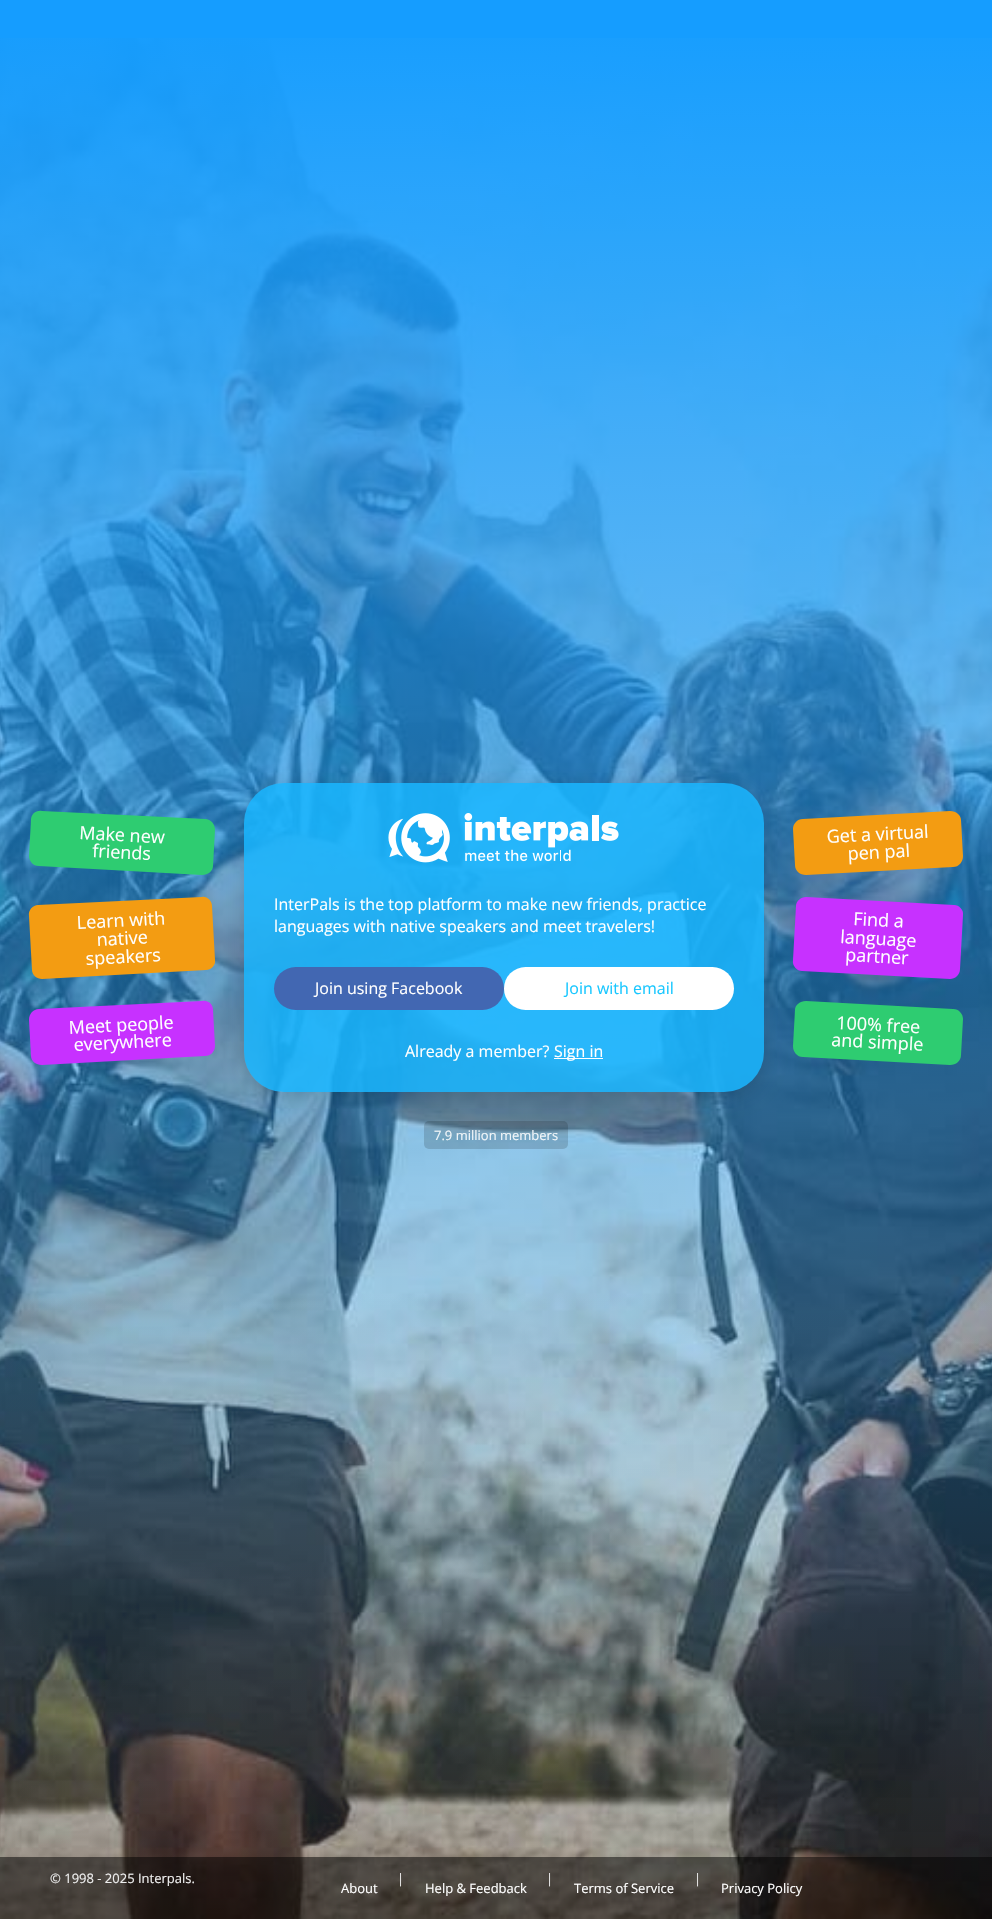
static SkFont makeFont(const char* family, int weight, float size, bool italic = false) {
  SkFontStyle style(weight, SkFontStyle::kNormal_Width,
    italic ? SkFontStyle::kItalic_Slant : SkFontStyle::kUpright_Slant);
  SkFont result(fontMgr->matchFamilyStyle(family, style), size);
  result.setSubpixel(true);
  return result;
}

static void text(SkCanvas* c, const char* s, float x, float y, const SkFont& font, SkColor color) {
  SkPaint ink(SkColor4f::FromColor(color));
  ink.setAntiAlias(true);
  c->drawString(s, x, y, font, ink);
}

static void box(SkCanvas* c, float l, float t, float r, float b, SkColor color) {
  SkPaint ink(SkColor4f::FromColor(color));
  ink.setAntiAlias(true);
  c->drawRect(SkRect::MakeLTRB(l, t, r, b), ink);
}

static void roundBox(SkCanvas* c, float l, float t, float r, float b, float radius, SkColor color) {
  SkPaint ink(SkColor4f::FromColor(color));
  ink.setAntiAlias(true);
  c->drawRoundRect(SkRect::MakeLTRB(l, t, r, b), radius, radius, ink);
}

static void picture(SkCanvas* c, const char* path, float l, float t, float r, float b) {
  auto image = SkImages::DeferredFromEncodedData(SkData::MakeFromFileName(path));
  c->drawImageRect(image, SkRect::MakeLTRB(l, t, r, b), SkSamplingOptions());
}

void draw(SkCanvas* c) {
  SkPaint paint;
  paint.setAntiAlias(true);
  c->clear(0xff159dff);
  picture(c, "img_01.png", 0, 38, 992, 1919);
  c->save();
  c->clipPath(SkPathBuilder(SkPathFillType::kEvenOdd).moveTo(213, 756).lineTo(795, 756).lineTo(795, 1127).lineTo(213, 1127).close().moveTo(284, 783).lineTo(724, 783).cubicTo(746, 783, 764, 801, 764, 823).lineTo(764, 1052).cubicTo(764, 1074, 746, 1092, 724, 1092).lineTo(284, 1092).cubicTo(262, 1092, 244, 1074, 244, 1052).lineTo(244, 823).cubicTo(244, 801, 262, 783, 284, 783).close().detach(), true);
  paint.setColor(0x26000000);
  paint.setMaskFilter(SkMaskFilter::MakeBlur(kNormal_SkBlurStyle, 10));
  c->drawRoundRect(SkRect::MakeLTRB(244, 787, 764, 1096), 40, 40, paint);
  paint.setMaskFilter(nullptr);
  c->restore();
  paint.setColor(0xff2ecc71);
  c->drawPath(SkPathBuilder().moveTo(42, 811).lineTo(205, 819).cubicTo(211, 819, 215, 824, 215, 830).lineTo(213, 866).cubicTo(213, 871, 208, 875, 202, 875).lineTo(39, 866).cubicTo(33, 866, 29, 861, 29, 856).lineTo(31, 820).cubicTo(31, 814, 36, 810, 42, 811).close().detach(), paint);
  SkFont face1 = makeFont("Open Sans", 400, 18);
  c->save();
  c->rotate(3, 79, 839);
  text(c, "Make new", 79, 839, face1, 0xffffffff);
  c->restore();
  c->save();
  c->rotate(3, 92, 857);
  text(c, "friends", 92, 857, face1, 0xffffffff);
  c->restore();
  paint.setColor(0xfff39c12);
  c->drawPath(SkPathBuilder().moveTo(38, 905).lineTo(202, 897).cubicTo(207, 896, 212, 901, 212, 906).lineTo(215, 960).cubicTo(216, 965, 211, 970, 206, 970).lineTo(42, 979).cubicTo(37, 979, 32, 975, 32, 970).lineTo(29, 916).cubicTo(28, 910, 33, 905, 38, 905).close().detach(), paint);
  c->save();
  c->rotate(-3, 77, 929);
  text(c, "Learn with", 77, 929, face1, 0xffffffff);
  c->restore();
  c->save();
  c->rotate(-3, 97, 946);
  text(c, "native", 97, 946, face1, 0xffffffff);
  c->restore();
  c->save();
  c->rotate(-3, 86, 965);
  text(c, "speakers", 86, 965, face1, 0xffffffff);
  c->restore();
  paint.setColor(0xffc731ff);
  c->drawPath(SkPathBuilder().moveTo(39, 1009).lineTo(202, 1001).cubicTo(208, 1000, 213, 1004, 213, 1010).lineTo(215, 1046).cubicTo(215, 1051, 211, 1056, 205, 1056).lineTo(42, 1065).cubicTo(36, 1065, 31, 1061, 31, 1056).lineTo(29, 1020).cubicTo(29, 1014, 33, 1009, 39, 1009).close().detach(), paint);
  c->save();
  c->rotate(-3, 69, 1034);
  text(c, "Meet people", 69, 1034, face1, 0xffffffff);
  c->restore();
  c->save();
  c->rotate(-3, 74, 1051);
  text(c, "everywhere", 74, 1051, face1, 0xffffffff);
  c->restore();
  roundBox(c, 244, 783, 764, 1092, 40, 0xd919b5fe);
  picture(c, "img_02.png", 388, 813, 619, 863);
  SkFont face2 = makeFont("Open Sans", 400, 16);
  text(c, "InterPals is the top platform to make new friends, practice", 274, 910, face2, 0xffffffff);
  text(c, "languages with native speakers and meet travelers!", 274, 932, face2, 0xffffffff);
  roundBox(c, 274, 967, 504, 1010, 21.5f, 0xff4267b2);
  text(c, "Join using Facebook", 315, 994, face2, 0xffffffff);
  roundBox(c, 504, 967, 734, 1010, 21.5f, 0xffffffff);
  text(c, "Join with email", 565, 994, face2, 0xff17c7ff);
  text(c, "Already a member?", 405, 1057, face2, 0xffffffff);
  box(c, 554, 1058, 603, 1059, 0xffffffff);
  text(c, "Sign in", 554, 1057, face2, 0xffffffff);
  paint.setColor(0xfff39c12);
  c->drawPath(SkPathBuilder().moveTo(803, 819).lineTo(950, 811).cubicTo(956, 811, 961, 815, 961, 820).lineTo(963, 856).cubicTo(963, 862, 959, 867, 953, 867).lineTo(806, 875).cubicTo(800, 875, 795, 871, 795, 865).lineTo(793, 829).cubicTo(793, 824, 797, 819, 803, 819).close().detach(), paint);
  c->save();
  c->rotate(-3, 827, 843);
  text(c, "Get a virtual", 827, 843, face1, 0xffffffff);
  c->restore();
  c->save();
  c->rotate(-3, 848, 860);
  text(c, "pen pal", 848, 860, face1, 0xffffffff);
  c->restore();
  paint.setColor(0xffc731ff);
  c->drawPath(SkPathBuilder().moveTo(806, 897).lineTo(954, 905).cubicTo(959, 905, 964, 910, 963, 915).lineTo(960, 969).cubicTo(960, 975, 955, 979, 950, 979).lineTo(802, 971).cubicTo(797, 971, 792, 966, 793, 960).lineTo(796, 906).cubicTo(796, 901, 801, 897, 806, 897).close().detach(), paint);
  c->save();
  c->rotate(3, 853, 925);
  text(c, "Find a", 853, 925, face1, 0xffffffff);
  c->restore();
  c->save();
  c->rotate(3, 840, 943);
  text(c, "language", 840, 943, face1, 0xffffffff);
  c->restore();
  c->save();
  c->rotate(3, 845, 961);
  text(c, "partner", 845, 961, face1, 0xffffffff);
  c->restore();
  paint.setColor(0xff2ecc71);
  c->drawPath(SkPathBuilder().moveTo(806, 1001).lineTo(953, 1009).cubicTo(959, 1009, 963, 1014, 963, 1019).lineTo(961, 1055).cubicTo(961, 1061, 956, 1065, 950, 1065).lineTo(803, 1057).cubicTo(797, 1057, 793, 1052, 793, 1046).lineTo(795, 1010).cubicTo(795, 1005, 800, 1001, 806, 1001).close().detach(), paint);
  c->save();
  c->rotate(3, 836, 1029);
  text(c, "100% free", 836, 1029, face1, 0xffffffff);
  c->restore();
  c->save();
  c->rotate(3, 831, 1046);
  text(c, "and simple", 831, 1046, face1, 0xffffffff);
  c->restore();
  roundBox(c, 424, 1121, 568, 1149, 5, 0x26000000);
  SkFont face3 = makeFont("Open Sans", 400, 13);
  text(c, "7.9 million members", 434, 1140, face3, 0xfff1f6f9);
  box(c, 0, 1857, 992, 1919, 0x80000000);
  text(c, "© 1998 - 2025 Interpals.", 50, 1883, face3, 0xffeeeeee);
  text(c, "|", 397, 1883, face3, 0xffeeeeee);
  text(c, "|", 546, 1883, face3, 0xffeeeeee);
  text(c, "|", 694, 1883, face3, 0xffeeeeee);
  text(c, "About", 341, 1893, face3, 0xffffffff);
  text(c, "Help & Feedback", 425, 1893, face3, 0xffffffff);
  text(c, "Terms of Service", 574, 1893, face3, 0xffffffff);
  text(c, "Privacy Policy", 721, 1893, face3, 0xffffffff);
}
